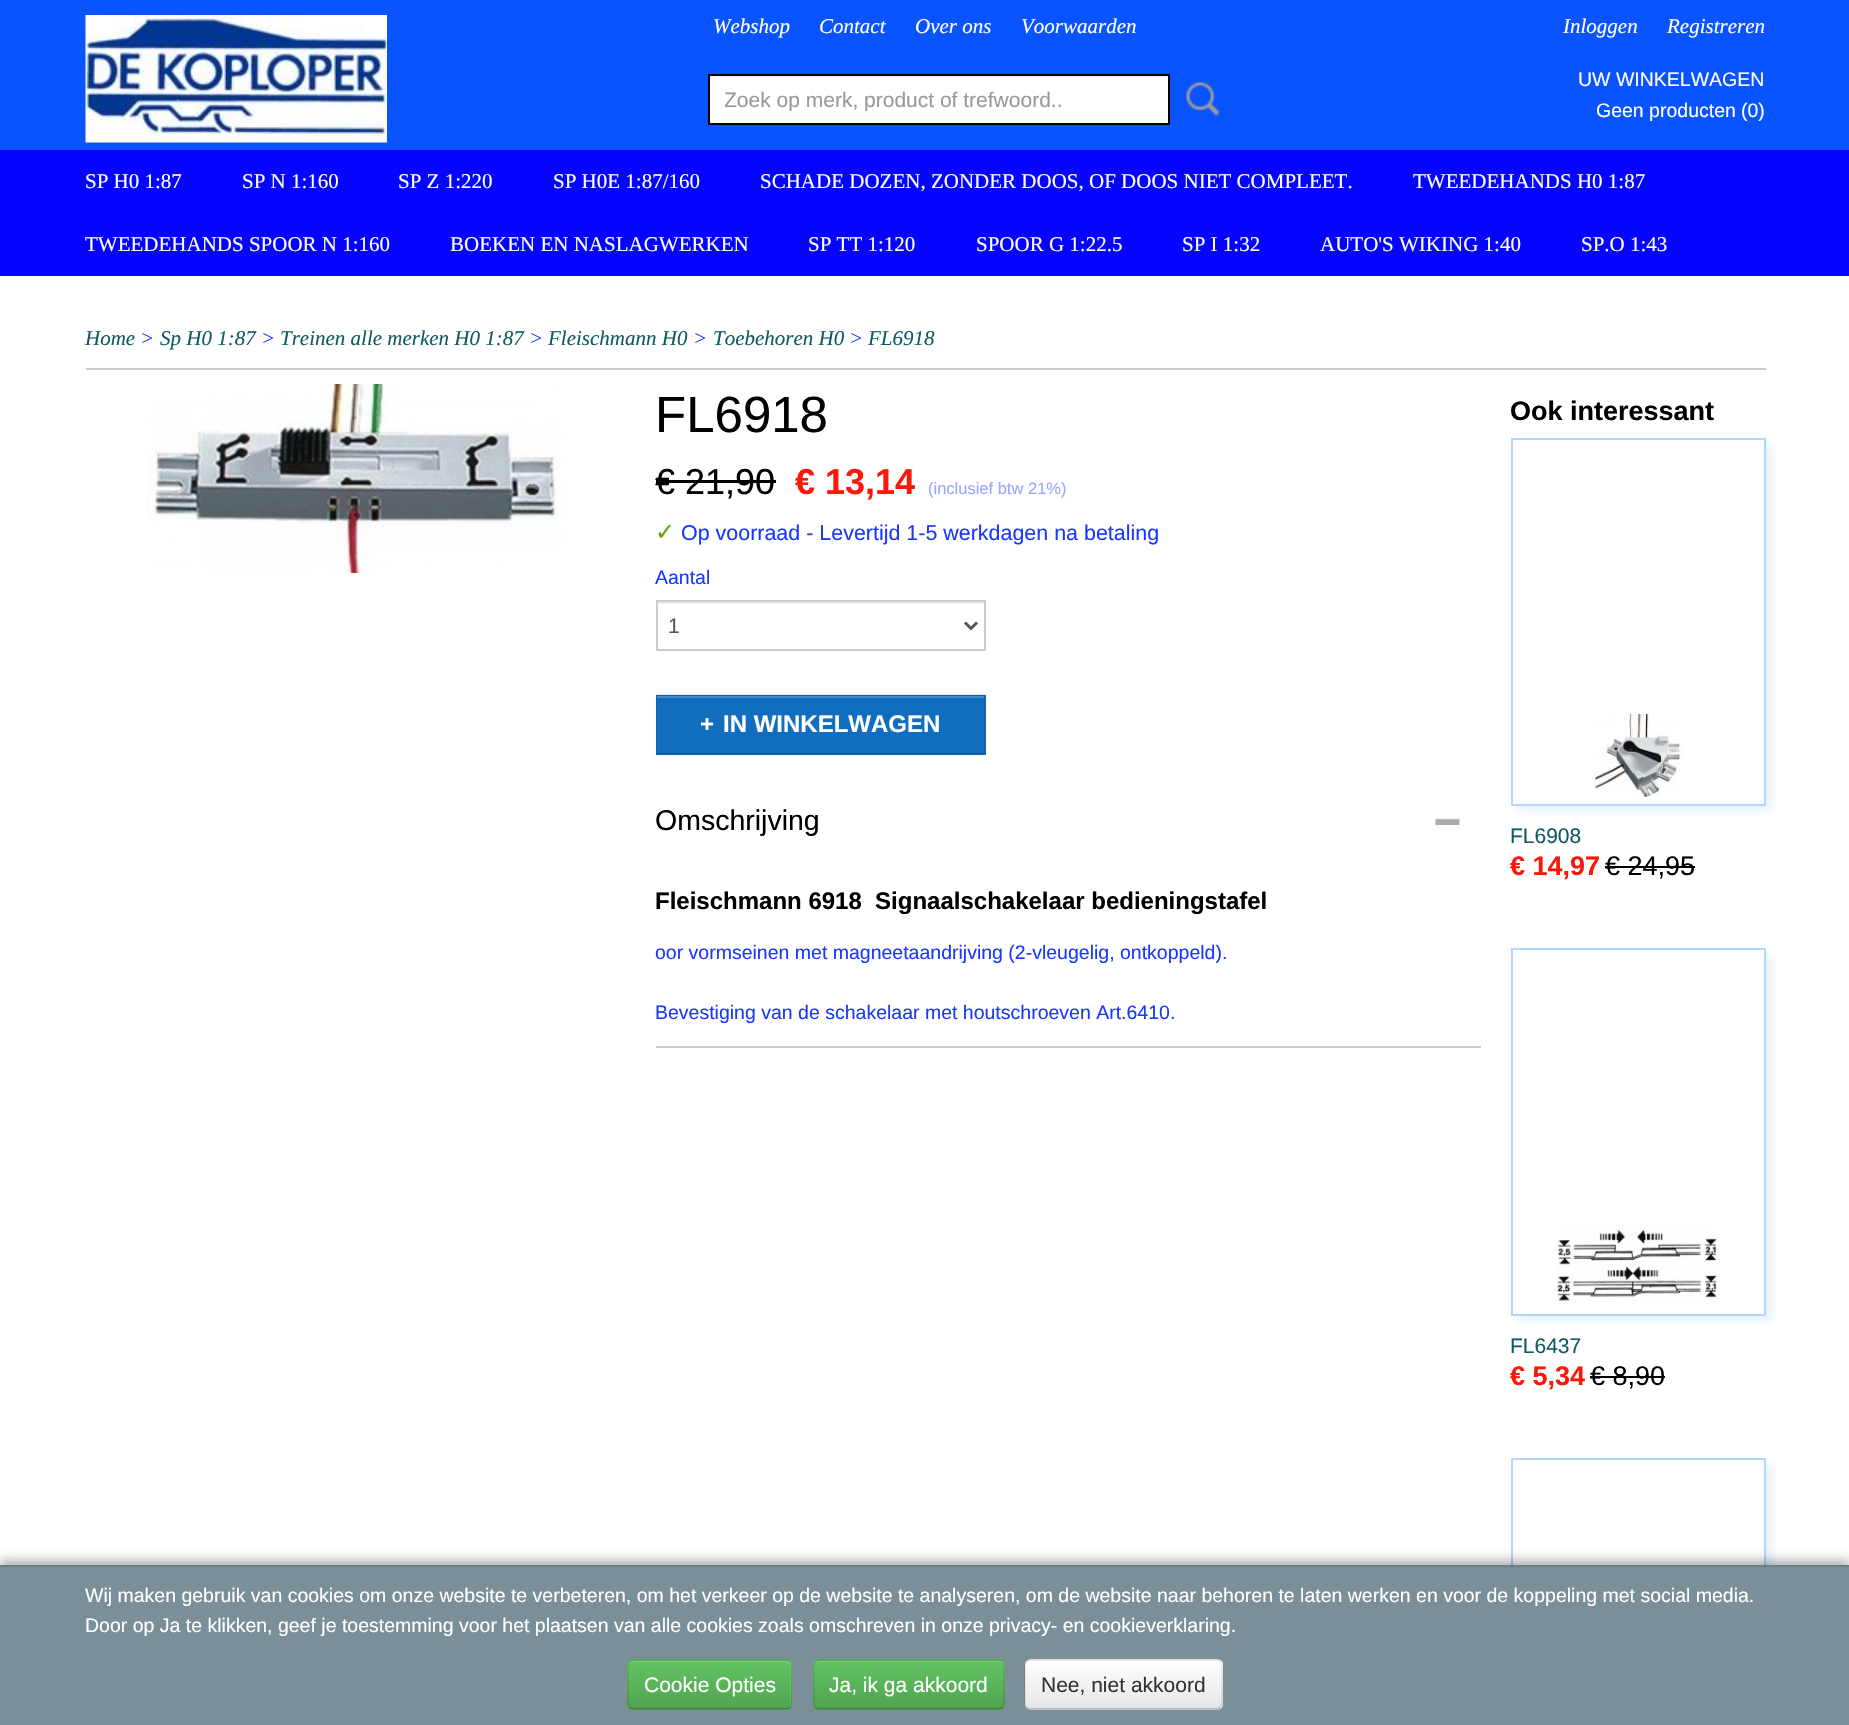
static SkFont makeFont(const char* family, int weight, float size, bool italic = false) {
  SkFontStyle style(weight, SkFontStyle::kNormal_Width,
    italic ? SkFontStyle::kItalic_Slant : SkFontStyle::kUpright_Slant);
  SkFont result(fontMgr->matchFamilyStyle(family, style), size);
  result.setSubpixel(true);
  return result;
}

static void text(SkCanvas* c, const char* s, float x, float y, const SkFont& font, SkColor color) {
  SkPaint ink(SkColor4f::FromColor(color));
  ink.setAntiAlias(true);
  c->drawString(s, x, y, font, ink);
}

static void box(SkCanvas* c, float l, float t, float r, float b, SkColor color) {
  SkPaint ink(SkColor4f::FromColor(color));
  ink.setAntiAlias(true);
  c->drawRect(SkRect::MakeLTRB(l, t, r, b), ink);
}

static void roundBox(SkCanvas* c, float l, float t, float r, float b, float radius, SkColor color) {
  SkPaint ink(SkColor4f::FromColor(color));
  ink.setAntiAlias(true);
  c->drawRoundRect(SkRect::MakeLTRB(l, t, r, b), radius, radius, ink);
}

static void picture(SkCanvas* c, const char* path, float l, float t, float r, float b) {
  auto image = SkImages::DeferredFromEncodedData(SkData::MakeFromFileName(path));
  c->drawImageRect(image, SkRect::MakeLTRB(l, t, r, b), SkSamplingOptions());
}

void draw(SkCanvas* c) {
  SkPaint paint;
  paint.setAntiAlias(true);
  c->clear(0xffffffff);
  box(c, 0, 0, 1849, 150, 0xff0a54ff);
  picture(c, "img_01.png", 85, 15, 387, 143);
  SkFont face1 = makeFont("Liberation Serif", 400, 21, true);
  text(c, "Webshop", 713, 33, face1, 0xffffffff);
  text(c, "Contact", 819, 33, face1, 0xffffffff);
  text(c, "Over ons", 915, 33, face1, 0xffffffff);
  text(c, "Voorwaarden", 1021, 33, face1, 0xffffffff);
  text(c, "Inloggen", 1563, 33, face1, 0xffffffff);
  text(c, "Registreren", 1667, 33, face1, 0xffffffff);
  SkFont face2 = makeFont("Liberation Sans", 400, 19.5f);
  text(c, "UW WINKELWAGEN", 1578, 86, face2, 0xffffffff);
  text(c, "Geen producten", 1596, 117, face2, 0xffffffff);
  text(c, "(0)", 1741, 117, face2, 0xffffffff);
  box(c, 710, 77, 1168, 123, 0xffffffff);
  box(c, 710, 76, 1169, 77, 0xffececec);
  paint.setStyle(SkPaint::kStroke_Style);
  paint.setStrokeWidth(2);
  paint.setColor(0xff000000);
  c->drawRect(SkRect::MakeLTRB(709, 75, 1169, 124), paint);
  c->save();
  c->clipRect(SkRect::MakeLTRB(725, 87, 1154, 111));
  SkFont face3 = makeFont("Liberation Sans", 400, 21);
  text(c, "Zoek op merk, product of trefwoord..", 724, 107, face3, 0xff999999);
  c->restore();
  picture(c, "img_02.png", 1186, 82, 1220, 116);
  box(c, 0, 150, 1849, 276, 0xff0505ff);
  SkFont face4 = makeFont("Liberation Serif", 400, 21);
  text(c, "SP H0 1:87", 85, 188, face4, 0xffffffff);
  text(c, "SP N 1:160", 242, 188, face4, 0xffffffff);
  text(c, "SP Z 1:220", 398, 188, face4, 0xffffffff);
  text(c, "SP H0E 1:87/160", 553, 188, face4, 0xffffffff);
  text(c, "SCHADE DOZEN, ZONDER DOOS, OF DOOS NIET COMPLEET.", 760, 188, face4, 0xffffffff);
  text(c, "TWEEDEHANDS H0 1:87", 1413, 188, face4, 0xffffffff);
  text(c, "TWEEDEHANDS SPOOR N 1:160", 85, 251, face4, 0xffffffff);
  text(c, "BOEKEN EN NASLAGWERKEN", 450, 251, face4, 0xffffffff);
  text(c, "SP TT 1:120", 808, 251, face4, 0xffffffff);
  text(c, "SPOOR G 1:22.5", 976, 251, face4, 0xffffffff);
  text(c, "SP I 1:32", 1182, 251, face4, 0xffffffff);
  text(c, "AUTO'S WIKING 1:40", 1320, 251, face4, 0xffffffff);
  text(c, "SP.O 1:43", 1581, 251, face4, 0xffffffff);
  box(c, 86, 368, 1766, 370, 0xffcccccc);
  text(c, "Home", 85, 345, face1, 0xff105b63);
  text(c, ">", 140, 345, face1, 0xff1938ff);
  text(c, "Sp H0 1:87", 160, 345, face1, 0xff105b63);
  text(c, ">", 261, 345, face1, 0xff1938ff);
  text(c, "Treinen alle merken H0 1:87", 280, 345, face1, 0xff105b63);
  text(c, ">", 529, 345, face1, 0xff1938ff);
  text(c, "Fleischmann H0", 548, 345, face1, 0xff105b63);
  text(c, ">", 693, 345, face1, 0xff1938ff);
  text(c, "Toebehoren H0", 713, 345, face1, 0xff105b63);
  text(c, ">", 849, 345, face1, 0xff1938ff);
  text(c, "FL6918", 868, 345, face1, 0xff105b63);
  picture(c, "img_03.png", 146, 384, 565, 573);
  SkFont face5 = makeFont("Liberation Sans", 400, 51);
  text(c, "FL6918", 655, 432, face5, 0xff000000);
  SkFont face6 = makeFont("Liberation Sans", 400, 36);
  text(c, "€ 21,90", 655, 494, face6, 0xff000000);
  box(c, 656, 480, 776, 483, 0xff000000);
  SkFont face7 = makeFont("Liberation Sans", 700, 36);
  text(c, "€ 13,14", 795, 494, face7, 0xfffa1808);
  SkFont face8 = makeFont("Liberation Sans", 400, 16.5f);
  text(c, "(inclusief btw 21%)", 928, 494, face8, 0xff99a6ff);
  SkFont face9 = makeFont("DejaVu Sans", 400, 24);
  text(c, "✓", 655, 540, face9, 0xff5ea600);
  SkFont face10 = makeFont("Liberation Sans", 400, 21.45f);
  text(c, "Op voorraad - Levertijd 1-5 werkdagen na betaling", 681, 540, face10, 0xff1938ff);
  text(c, "Aantal", 655, 584, face2, 0xff1938ff);
  box(c, 657, 602, 984, 604, 0xffececec);
  paint.setColor(0xffcccccc);
  c->drawRect(SkRect::MakeLTRB(657, 601, 985, 650), paint);
  paint.setStrokeWidth(3);
  paint.setColor(0xff555555);
  c->drawPath(SkPathBuilder().moveTo(965, 622.5f).lineTo(971, 628.5f).lineTo(977, 622.5f).detach(), paint);
  text(c, "1", 668, 633, face3, 0xff555555);
  paint.setStyle(SkPaint::kFill_Style);
  paint.setColor(0x0d000000);
  paint.setMaskFilter(SkMaskFilter::MakeBlur(kNormal_SkBlurStyle, 1.5f));
  c->drawRect(SkRect::MakeLTRB(656, 696, 986, 756), paint);
  paint.setMaskFilter(nullptr);
  box(c, 656, 695, 986, 755, 0xff116ebf);
  box(c, 657, 696, 984, 698, 0xff418bcc);
  paint.setColor(0x1a000000);
  c->drawPath(SkPathBuilder().moveTo(656, 694).lineTo(986, 694).lineTo(984, 696).lineTo(657, 696).close().detach(), paint);
  c->drawPath(SkPathBuilder().moveTo(986, 694).lineTo(986, 754).lineTo(984, 753).lineTo(984, 696).close().detach(), paint);
  paint.setColor(0x40000000);
  c->drawPath(SkPathBuilder().moveTo(986, 754).lineTo(656, 754).lineTo(657, 753).lineTo(984, 753).close().detach(), paint);
  paint.setColor(0x1a000000);
  c->drawPath(SkPathBuilder().moveTo(656, 754).lineTo(656, 694).lineTo(657, 696).lineTo(657, 753).close().detach(), paint);
  SkFont face11 = makeFont("Liberation Sans", 700, 24);
  text(c, "+", 700, 732, face11, 0xffffffff);
  text(c, "IN WINKELWAGEN", 723, 732, face11, 0xffffffff);
  box(c, 656, 1046, 1481, 1048, 0xffcccccc);
  picture(c, "img_04.png", 1435, 818, 1460, 825);
  SkFont face12 = makeFont("Liberation Sans", 400, 28.5f);
  text(c, "Omschrijving", 655, 830, face12, 0xff000000);
  text(c, "Fleischmann 6918  Signaalschakelaar bedieningstafel", 655, 909, face11, 0xff000000);
  text(c, "oor vormseinen met magneetaandrijving (2-vleugelig, ontkoppeld).", 655, 959, face2, 0xff1938ff);
  text(c, "Bevestiging van de schakelaar met houtschroeven Art.6410.", 655, 1019, face2, 0xff1938ff);
  SkFont face13 = makeFont("Liberation Sans", 700, 27);
  text(c, "Ook interessant", 1510, 420, face13, 0xff000000);
  c->save();
  c->clipPath(SkPathBuilder(SkPathFillType::kEvenOdd).moveTo(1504, 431).lineTo(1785, 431).lineTo(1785, 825).lineTo(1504, 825).close().moveTo(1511, 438).lineTo(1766, 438).lineTo(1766, 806).lineTo(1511, 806).close().detach(), true);
  paint.setColor(0x4db0d7ff);
  paint.setMaskFilter(SkMaskFilter::MakeBlur(kNormal_SkBlurStyle, 4));
  c->drawRect(SkRect::MakeLTRB(1517, 444, 1772, 812), paint);
  paint.setMaskFilter(nullptr);
  c->restore();
  paint.setStyle(SkPaint::kStroke_Style);
  paint.setStrokeWidth(2);
  paint.setColor(0xffb0d7ff);
  c->drawRect(SkRect::MakeLTRB(1512, 439, 1765, 805), paint);
  picture(c, "img_05.png", 1593, 714, 1684, 798);
  text(c, "FL6908", 1510, 843, face3, 0xff105b63);
  text(c, "€ 14,97", 1510, 875, face13, 0xfffa1808);
  SkFont face14 = makeFont("Liberation Sans", 400, 27);
  text(c, "€ 24,95", 1605, 875, face14, 0xff000000);
  box(c, 1605, 866, 1695, 868, 0xff000000);
  c->save();
  c->clipPath(SkPathBuilder(SkPathFillType::kEvenOdd).moveTo(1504, 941).lineTo(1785, 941).lineTo(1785, 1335).lineTo(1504, 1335).close().moveTo(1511, 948).lineTo(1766, 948).lineTo(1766, 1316).lineTo(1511, 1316).close().detach(), true);
  paint.setStyle(SkPaint::kFill_Style);
  paint.setColor(0x4db0d7ff);
  paint.setMaskFilter(SkMaskFilter::MakeBlur(kNormal_SkBlurStyle, 4));
  c->drawRect(SkRect::MakeLTRB(1517, 954, 1772, 1322), paint);
  paint.setMaskFilter(nullptr);
  c->restore();
  paint.setStyle(SkPaint::kStroke_Style);
  paint.setColor(0xffb0d7ff);
  c->drawRect(SkRect::MakeLTRB(1512, 949, 1765, 1315), paint);
  picture(c, "img_06.png", 1556, 1225, 1721, 1307);
  text(c, "FL6437", 1510, 1353, face3, 0xff105b63);
  text(c, "€ 5,34", 1510, 1385, face13, 0xfffa1808);
  text(c, "€ 8,90", 1590, 1385, face14, 0xff000000);
  box(c, 1590, 1376, 1665, 1378, 0xff000000);
  c->save();
  c->clipRect(SkRect::MakeLTRB(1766, 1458, 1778, 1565));
  paint.setStyle(SkPaint::kFill_Style);
  paint.setColor(0x4db0d7ff);
  paint.setMaskFilter(SkMaskFilter::MakeBlur(kNormal_SkBlurStyle, 4));
  c->drawRect(SkRect::MakeLTRB(1517, 1464, 1772, 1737), paint);
  paint.setMaskFilter(nullptr);
  c->restore();
  paint.setStyle(SkPaint::kStroke_Style);
  paint.setColor(0xffb0d7ff);
  c->drawRect(SkRect::MakeLTRB(1512, 1459, 1765, 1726), paint);
  paint.setStyle(SkPaint::kFill_Style);
  paint.setColor(0x4d000000);
  paint.setMaskFilter(SkMaskFilter::MakeBlur(kNormal_SkBlurStyle, 5));
  c->drawRect(SkRect::MakeLTRB(0, 1560, 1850, 1721), paint);
  paint.setMaskFilter(nullptr);
  box(c, 0, 1567, 1849, 1725, 0xff7a8f98);
  box(c, 0, 1565, 1849, 1567, 0xff697e87);
  text(c, "Wij maken gebruik van cookies om onze website te verbeteren, om het verkeer op de website te analyseren, om de website naar behoren te laten werken en voor de koppeling met social media.", 85, 1602, face2, 0xffffffff);
  text(c, "Door op Ja te klikken, geef je toestemming voor het plaatsen van alle cookies zoals omschreven in onze privacy- en cookieverklaring.", 85, 1632, face2, 0xffffffff);
  roundBox(c, 627, 1659, 792, 1710, 6, 0xff5bb75b);
  c->save();
  c->clipPath(SkPathBuilder().moveTo(633, 1659).lineTo(786, 1659).cubicTo(789.5f, 1659, 792, 1661.5f, 792, 1665).lineTo(792, 1704).cubicTo(792, 1707.5f, 789.5f, 1710, 786, 1710).lineTo(633, 1710).cubicTo(629.5f, 1710, 627, 1707.5f, 627, 1704).lineTo(627, 1665).cubicTo(627, 1661.5f, 629.5f, 1659, 633, 1659).close().detach(), true);
  {
    const SkColor colors[] = {0xff62c462, 0xff51a351};
    const float stops[] = {0, 1};
    const SkPoint ends[] = {{710, 1661}, {710, 1709}};
    paint.setShader(SkGradientShader::MakeLinear(ends, colors, stops, 2, SkTileMode::kClamp));
    paint.setAlpha(255);
  }
  c->drawRect(SkRect::MakeLTRB(627, 1661, 792, 1709), paint);
  c->restore();
  paint.setShader(nullptr);
  paint.setColor(0x33ffffff);
  c->drawPath(SkPathBuilder().moveTo(633, 1662).lineTo(786, 1662).cubicTo(788, 1662, 790, 1664, 790, 1666).lineTo(790, 1707).cubicTo(791, 1706, 791, 1705, 791, 1704).lineTo(791, 1666).cubicTo(791, 1663, 789, 1661, 786, 1661).lineTo(634, 1661).cubicTo(632, 1661, 631, 1662, 630, 1663).close().detach(), paint);
  paint.setStyle(SkPaint::kStroke_Style);
  paint.setStrokeWidth(1.5f);
  paint.setColor(0x40000000);
  c->drawPath(SkPathBuilder().moveTo(789.5f, 1707.5f).cubicTo(788.5f, 1708.5f, 787.5f, 1709, 786, 1709).lineTo(633, 1709).cubicTo(631.5f, 1709, 630.5f, 1708.5f, 629.5f, 1707.5f).detach(), paint);
  paint.setColor(0x1a000000);
  c->drawPath(SkPathBuilder().moveTo(629.5f, 1707.5f).cubicTo(628.5f, 1706.5f, 628, 1705.5f, 628, 1704).lineTo(628, 1665).cubicTo(628, 1663.5f, 628.5f, 1662.5f, 629.5f, 1661.5f).cubicTo(630.5f, 1660.5f, 631.5f, 1660, 633, 1660).lineTo(786, 1660).cubicTo(787.5f, 1660, 788.5f, 1660.5f, 789.5f, 1661.5f).cubicTo(790.5f, 1662.5f, 791, 1663.5f, 791, 1665).lineTo(791, 1704).cubicTo(791, 1705.5f, 790.5f, 1706.5f, 789.5f, 1707.5f).detach(), paint);
  text(c, "Cookie Opties", 644, 1692, face3, 0xffffffff);
  roundBox(c, 813, 1659, 1005, 1710, 6, 0xff5bb75b);
  c->save();
  c->clipPath(SkPathBuilder().moveTo(819, 1659).lineTo(999, 1659).cubicTo(1002.5f, 1659, 1005, 1661.5f, 1005, 1665).lineTo(1005, 1704).cubicTo(1005, 1707.5f, 1002.5f, 1710, 999, 1710).lineTo(819, 1710).cubicTo(815.5f, 1710, 813, 1707.5f, 813, 1704).lineTo(813, 1665).cubicTo(813, 1661.5f, 815.5f, 1659, 819, 1659).close().detach(), true);
  paint.setStyle(SkPaint::kFill_Style);
  {
    const SkColor colors[] = {0xff62c462, 0xff51a351};
    const float stops[] = {0, 1};
    const SkPoint ends[] = {{909, 1661}, {909, 1709}};
    paint.setShader(SkGradientShader::MakeLinear(ends, colors, stops, 2, SkTileMode::kClamp));
    paint.setAlpha(255);
  }
  c->drawRect(SkRect::MakeLTRB(813, 1661, 1005, 1709), paint);
  c->restore();
  paint.setShader(nullptr);
  paint.setColor(0xff81d081);
  c->drawPath(SkPathBuilder().moveTo(819, 1662).lineTo(999, 1662).cubicTo(1001, 1662, 1004, 1664, 1004, 1666).cubicTo(1004, 1663, 1002, 1661, 999, 1661).lineTo(820, 1661).cubicTo(818, 1661, 817, 1662, 816, 1663).close().detach(), paint);
  paint.setStyle(SkPaint::kStroke_Style);
  paint.setColor(0x40000000);
  c->drawPath(SkPathBuilder().moveTo(1002.5f, 1707.5f).cubicTo(1001.5f, 1708.5f, 1000.5f, 1709, 999, 1709).lineTo(819, 1709).cubicTo(817.5f, 1709, 816.5f, 1708.5f, 815.5f, 1707.5f).detach(), paint);
  paint.setColor(0x1a000000);
  c->drawPath(SkPathBuilder().moveTo(815.5f, 1707.5f).cubicTo(814.5f, 1706.5f, 814, 1705.5f, 814, 1704).lineTo(814, 1665).cubicTo(814, 1663.5f, 814.5f, 1662.5f, 815.5f, 1661.5f).cubicTo(816.5f, 1660.5f, 817.5f, 1660, 819, 1660).lineTo(999, 1660).cubicTo(1000.5f, 1660, 1001.5f, 1660.5f, 1002.5f, 1661.5f).cubicTo(1003.5f, 1662.5f, 1004, 1663.5f, 1004, 1665).lineTo(1004, 1704).cubicTo(1004, 1705.5f, 1003.5f, 1706.5f, 1002.5f, 1707.5f).detach(), paint);
  text(c, "Ja, ik ga akkoord", 829, 1692, face3, 0xffffffff);
  roundBox(c, 1025, 1659, 1223, 1710, 6, 0xfff5f5f5);
  c->save();
  c->clipPath(SkPathBuilder().moveTo(1031, 1659).lineTo(1217, 1659).cubicTo(1220.5f, 1659, 1223, 1661.5f, 1223, 1665).lineTo(1223, 1704).cubicTo(1223, 1707.5f, 1220.5f, 1710, 1217, 1710).lineTo(1031, 1710).cubicTo(1027.5f, 1710, 1025, 1707.5f, 1025, 1704).lineTo(1025, 1665).cubicTo(1025, 1661.5f, 1027.5f, 1659, 1031, 1659).close().detach(), true);
  paint.setStyle(SkPaint::kFill_Style);
  {
    const SkColor colors[] = {0xffffffff, 0xffe6e6e6};
    const float stops[] = {0, 1};
    const SkPoint ends[] = {{1124, 1661}, {1124, 1709}};
    paint.setShader(SkGradientShader::MakeLinear(ends, colors, stops, 2, SkTileMode::kClamp));
    paint.setAlpha(255);
  }
  c->drawRect(SkRect::MakeLTRB(1025, 1661, 1223, 1709), paint);
  c->restore();
  paint.setStyle(SkPaint::kStroke_Style);
  paint.setShader(nullptr);
  paint.setColor(0x40000000);
  c->drawPath(SkPathBuilder().moveTo(1220, 1707.5f).cubicTo(1219, 1708.5f, 1218, 1709, 1216.5f, 1709).lineTo(1030.5f, 1709).cubicTo(1029, 1709, 1028, 1708.5f, 1027, 1707.5f).detach(), paint);
  paint.setColor(0x1a000000);
  c->drawPath(SkPathBuilder().moveTo(1027, 1707.5f).cubicTo(1026, 1706.5f, 1025, 1705.5f, 1025, 1704).lineTo(1025, 1665).cubicTo(1025, 1663.5f, 1026, 1662.5f, 1027, 1661.5f).cubicTo(1028, 1660.5f, 1029, 1660, 1030.5f, 1660).lineTo(1216.5f, 1660).cubicTo(1218, 1660, 1219, 1660.5f, 1220, 1661.5f).cubicTo(1221, 1662.5f, 1222, 1663.5f, 1222, 1665).lineTo(1222, 1704).cubicTo(1222, 1705.5f, 1221, 1706.5f, 1220, 1707.5f).detach(), paint);
  text(c, "Nee, niet akkoord", 1041, 1692, face3, 0xff333333);
}
